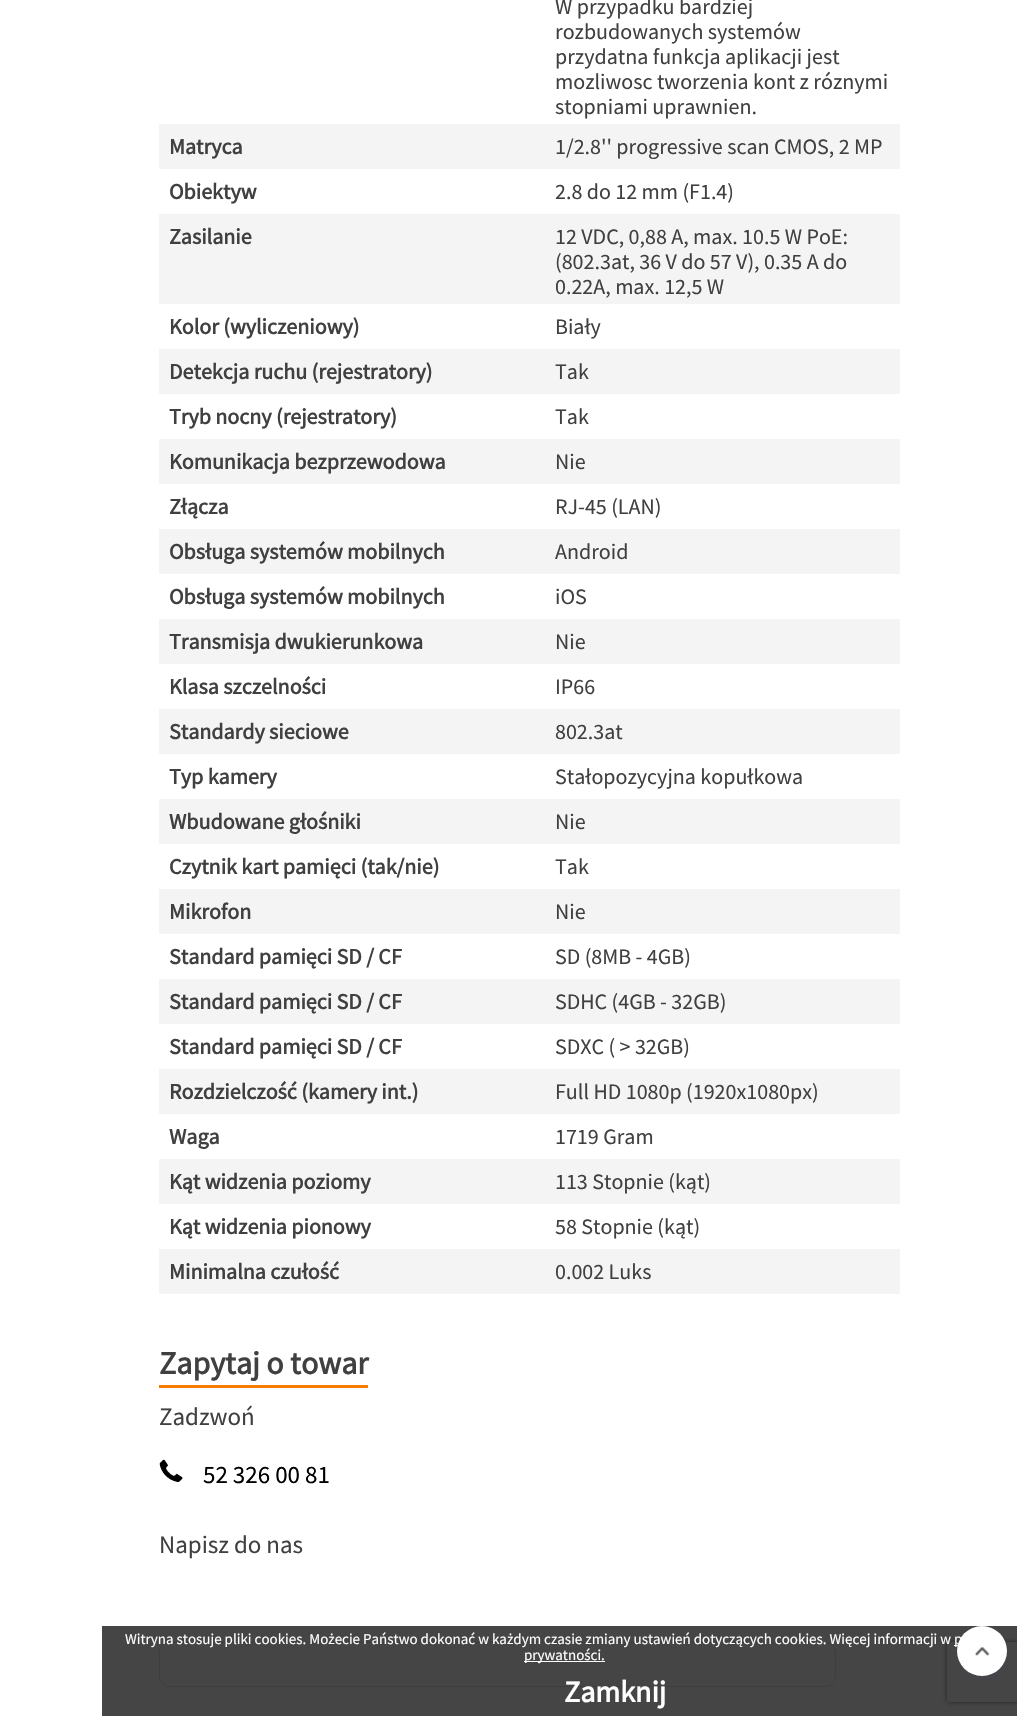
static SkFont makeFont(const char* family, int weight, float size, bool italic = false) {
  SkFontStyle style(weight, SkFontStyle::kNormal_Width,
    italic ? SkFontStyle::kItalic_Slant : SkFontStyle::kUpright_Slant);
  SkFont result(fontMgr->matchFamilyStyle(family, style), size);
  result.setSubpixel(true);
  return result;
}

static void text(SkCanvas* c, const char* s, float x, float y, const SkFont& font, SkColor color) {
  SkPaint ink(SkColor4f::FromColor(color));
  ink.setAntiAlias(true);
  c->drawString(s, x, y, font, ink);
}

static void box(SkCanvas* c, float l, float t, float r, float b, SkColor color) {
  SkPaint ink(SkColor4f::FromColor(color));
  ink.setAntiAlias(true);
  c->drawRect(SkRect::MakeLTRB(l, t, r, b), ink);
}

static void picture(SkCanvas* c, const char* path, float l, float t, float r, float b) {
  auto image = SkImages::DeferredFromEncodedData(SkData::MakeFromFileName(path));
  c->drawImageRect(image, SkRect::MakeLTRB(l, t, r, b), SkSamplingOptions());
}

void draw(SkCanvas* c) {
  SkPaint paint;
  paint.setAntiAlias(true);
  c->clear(0xffffffff);
  SkFont face1 = makeFont("Source Sans Pro", 400, 22);
  text(c, "W przypadku bardziej", 555, 14, face1, 0xff404040);
  text(c, "rozbudowanych systemów", 555, 39, face1, 0xff404040);
  text(c, "przydatna funkcja aplikacji jest", 555, 64, face1, 0xff404040);
  text(c, "mozliwosc tworzenia kont z róznymi", 555, 89, face1, 0xff404040);
  text(c, "stopniami uprawnien.", 555, 114, face1, 0xff404040);
  box(c, 159, 124, 900, 169, 0xfff4f4f4);
  SkFont face2 = makeFont("Source Sans Pro", 700, 22);
  text(c, "Matryca", 169, 154, face2, 0xff404040);
  text(c, "1/2.8'' progressive scan CMOS, 2 MP", 555, 154, face1, 0xff404040);
  text(c, "Obiektyw", 169, 199, face2, 0xff404040);
  text(c, "2.8 do 12 mm (F1.4)", 555, 199, face1, 0xff404040);
  box(c, 159, 214, 900, 304, 0xfff4f4f4);
  text(c, "Zasilanie", 169, 244, face2, 0xff404040);
  text(c, "12 VDC, 0,88 A, max. 10.5 W PoE:", 555, 244, face1, 0xff404040);
  text(c, "(802.3at, 36 V do 57 V), 0.35 A do", 555, 269, face1, 0xff404040);
  text(c, "0.22A, max. 12,5 W", 555, 294, face1, 0xff404040);
  text(c, "Kolor (wyliczeniowy)", 169, 334, face2, 0xff404040);
  text(c, "Biały", 555, 334, face1, 0xff404040);
  box(c, 159, 349, 900, 394, 0xfff4f4f4);
  text(c, "Detekcja ruchu (rejestratory)", 169, 379, face2, 0xff404040);
  text(c, "Tak", 555, 379, face1, 0xff404040);
  text(c, "Tryb nocny (rejestratory)", 169, 424, face2, 0xff404040);
  text(c, "Tak", 555, 424, face1, 0xff404040);
  box(c, 159, 439, 900, 484, 0xfff4f4f4);
  text(c, "Komunikacja bezprzewodowa", 169, 469, face2, 0xff404040);
  text(c, "Nie", 555, 469, face1, 0xff404040);
  text(c, "Złącza", 169, 514, face2, 0xff404040);
  text(c, "RJ-45 (LAN)", 555, 514, face1, 0xff404040);
  box(c, 159, 529, 900, 574, 0xfff4f4f4);
  text(c, "Obsługa systemów mobilnych", 169, 559, face2, 0xff404040);
  text(c, "Android", 555, 559, face1, 0xff404040);
  text(c, "Obsługa systemów mobilnych", 169, 604, face2, 0xff404040);
  text(c, "iOS", 555, 604, face1, 0xff404040);
  box(c, 159, 619, 900, 664, 0xfff4f4f4);
  text(c, "Transmisja dwukierunkowa", 169, 649, face2, 0xff404040);
  text(c, "Nie", 555, 649, face1, 0xff404040);
  text(c, "Klasa szczelności", 169, 694, face2, 0xff404040);
  text(c, "IP66", 555, 694, face1, 0xff404040);
  box(c, 159, 709, 900, 754, 0xfff4f4f4);
  text(c, "Standardy sieciowe", 169, 739, face2, 0xff404040);
  text(c, "802.3at", 555, 739, face1, 0xff404040);
  text(c, "Typ kamery", 169, 784, face2, 0xff404040);
  text(c, "Stałopozycyjna kopułkowa", 555, 784, face1, 0xff404040);
  box(c, 159, 799, 900, 844, 0xfff4f4f4);
  text(c, "Wbudowane głośniki", 169, 829, face2, 0xff404040);
  text(c, "Nie", 555, 829, face1, 0xff404040);
  text(c, "Czytnik kart pamięci (tak/nie)", 169, 874, face2, 0xff404040);
  text(c, "Tak", 555, 874, face1, 0xff404040);
  box(c, 159, 889, 900, 934, 0xfff4f4f4);
  text(c, "Mikrofon", 169, 919, face2, 0xff404040);
  text(c, "Nie", 555, 919, face1, 0xff404040);
  text(c, "Standard pamięci SD / CF", 169, 964, face2, 0xff404040);
  text(c, "SD (8MB - 4GB)", 555, 964, face1, 0xff404040);
  box(c, 159, 979, 900, 1024, 0xfff4f4f4);
  text(c, "Standard pamięci SD / CF", 169, 1009, face2, 0xff404040);
  text(c, "SDHC (4GB - 32GB)", 555, 1009, face1, 0xff404040);
  text(c, "Standard pamięci SD / CF", 169, 1054, face2, 0xff404040);
  text(c, "SDXC ( > 32GB)", 555, 1054, face1, 0xff404040);
  box(c, 159, 1069, 900, 1114, 0xfff4f4f4);
  text(c, "Rozdzielczość (kamery int.)", 169, 1099, face2, 0xff404040);
  text(c, "Full HD 1080p (1920x1080px)", 555, 1099, face1, 0xff404040);
  text(c, "Waga", 169, 1144, face2, 0xff404040);
  text(c, "1719 Gram", 555, 1144, face1, 0xff404040);
  box(c, 159, 1159, 900, 1204, 0xfff4f4f4);
  text(c, "Kąt widzenia poziomy", 169, 1189, face2, 0xff404040);
  text(c, "113 Stopnie (kąt)", 555, 1189, face1, 0xff404040);
  text(c, "Kąt widzenia pionowy", 169, 1234, face2, 0xff404040);
  text(c, "58 Stopnie (kąt)", 555, 1234, face1, 0xff404040);
  box(c, 159, 1249, 900, 1294, 0xfff4f4f4);
  text(c, "Minimalna czułość", 169, 1279, face2, 0xff404040);
  text(c, "0.002 Luks", 555, 1279, face1, 0xff404040);
  SkFont face3 = makeFont("Source Sans Pro", 700, 32);
  text(c, "Zapytaj o towar", 159, 1374, face3, 0xff404040);
  box(c, 159, 1385, 368, 1388, 0xfff87c04);
  SkFont face4 = makeFont("Source Sans Pro", 400, 25);
  text(c, "Zadzwoń", 159, 1425, face4, 0xff404040);
  picture(c, "img_01.png", 159, 1459, 183, 1482);
  text(c, "52 326 00 81", 203, 1483, face4, 0xff000000);
  text(c, "Napisz do nas", 159, 1553, face4, 0xff404040);
  paint.setStyle(SkPaint::kStroke_Style);
  paint.setStrokeWidth(1);
  paint.setColor(0xffe4e4e4);
  c->drawRoundRect(SkRect::MakeLTRB(159.5f, 1642.5f, 835.5f, 1686.5f), 9.5f, 9.5f, paint);
  c->save();
  c->clipPath(SkPathBuilder(SkPathFillType::kEvenOdd).moveTo(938, 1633).lineTo(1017, 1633).lineTo(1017, 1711).lineTo(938, 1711).close().moveTo(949, 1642).lineTo(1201, 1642).cubicTo(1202, 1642, 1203, 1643, 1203, 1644).lineTo(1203, 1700).cubicTo(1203, 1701, 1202, 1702, 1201, 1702).lineTo(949, 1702).cubicTo(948, 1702, 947, 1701, 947, 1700).lineTo(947, 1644).cubicTo(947, 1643, 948, 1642, 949, 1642).close().detach(), true);
  paint.setStyle(SkPaint::kFill_Style);
  paint.setColor(0xff808080);
  paint.setMaskFilter(SkMaskFilter::MakeBlur(kNormal_SkBlurStyle, 2.5f));
  c->drawRoundRect(SkRect::MakeLTRB(947, 1642, 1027, 1702), 2, 2, paint);
  paint.setMaskFilter(nullptr);
  c->restore();
  box(c, 102, 1626, 1017, 1716, 0xba000000);
  SkFont face5 = makeFont("Source Sans Pro", 400, 15);
  text(c, "Witryna stosuje pliki cookies. Możecie Państwo dokonać w każdym czasie zmiany ustawień dotyczących cookies. Więcej informacji w", 125, 1644, face5, 0xffffffff);
  box(c, 954, 1645, 958, 1646, 0xffffffff);
  text(c, "p", 954, 1644, face5, 0xffffffff);
  box(c, 524, 1661, 605, 1662, 0xffffffff);
  text(c, "prywatności.", 524, 1660, face5, 0xffffffff);
  SkFont face6 = makeFont("Source Sans Pro", 700, 30);
  text(c, "Zamknij", 564, 1702, face6, 0xffffffff);
  paint.setColor(0xff42445a);
  paint.setMaskFilter(SkMaskFilter::MakeBlur(kNormal_SkBlurStyle, 6));
  c->drawRoundRect(SkRect::MakeLTRB(963, 1637, 1001, 1675), 19, 19, paint);
  paint.setMaskFilter(nullptr);
  paint.setColor(0xffffffff);
  c->drawCircle(982, 1651, 25, paint);
  picture(c, "img_02.png", 975, 1647, 990, 1656);
}
